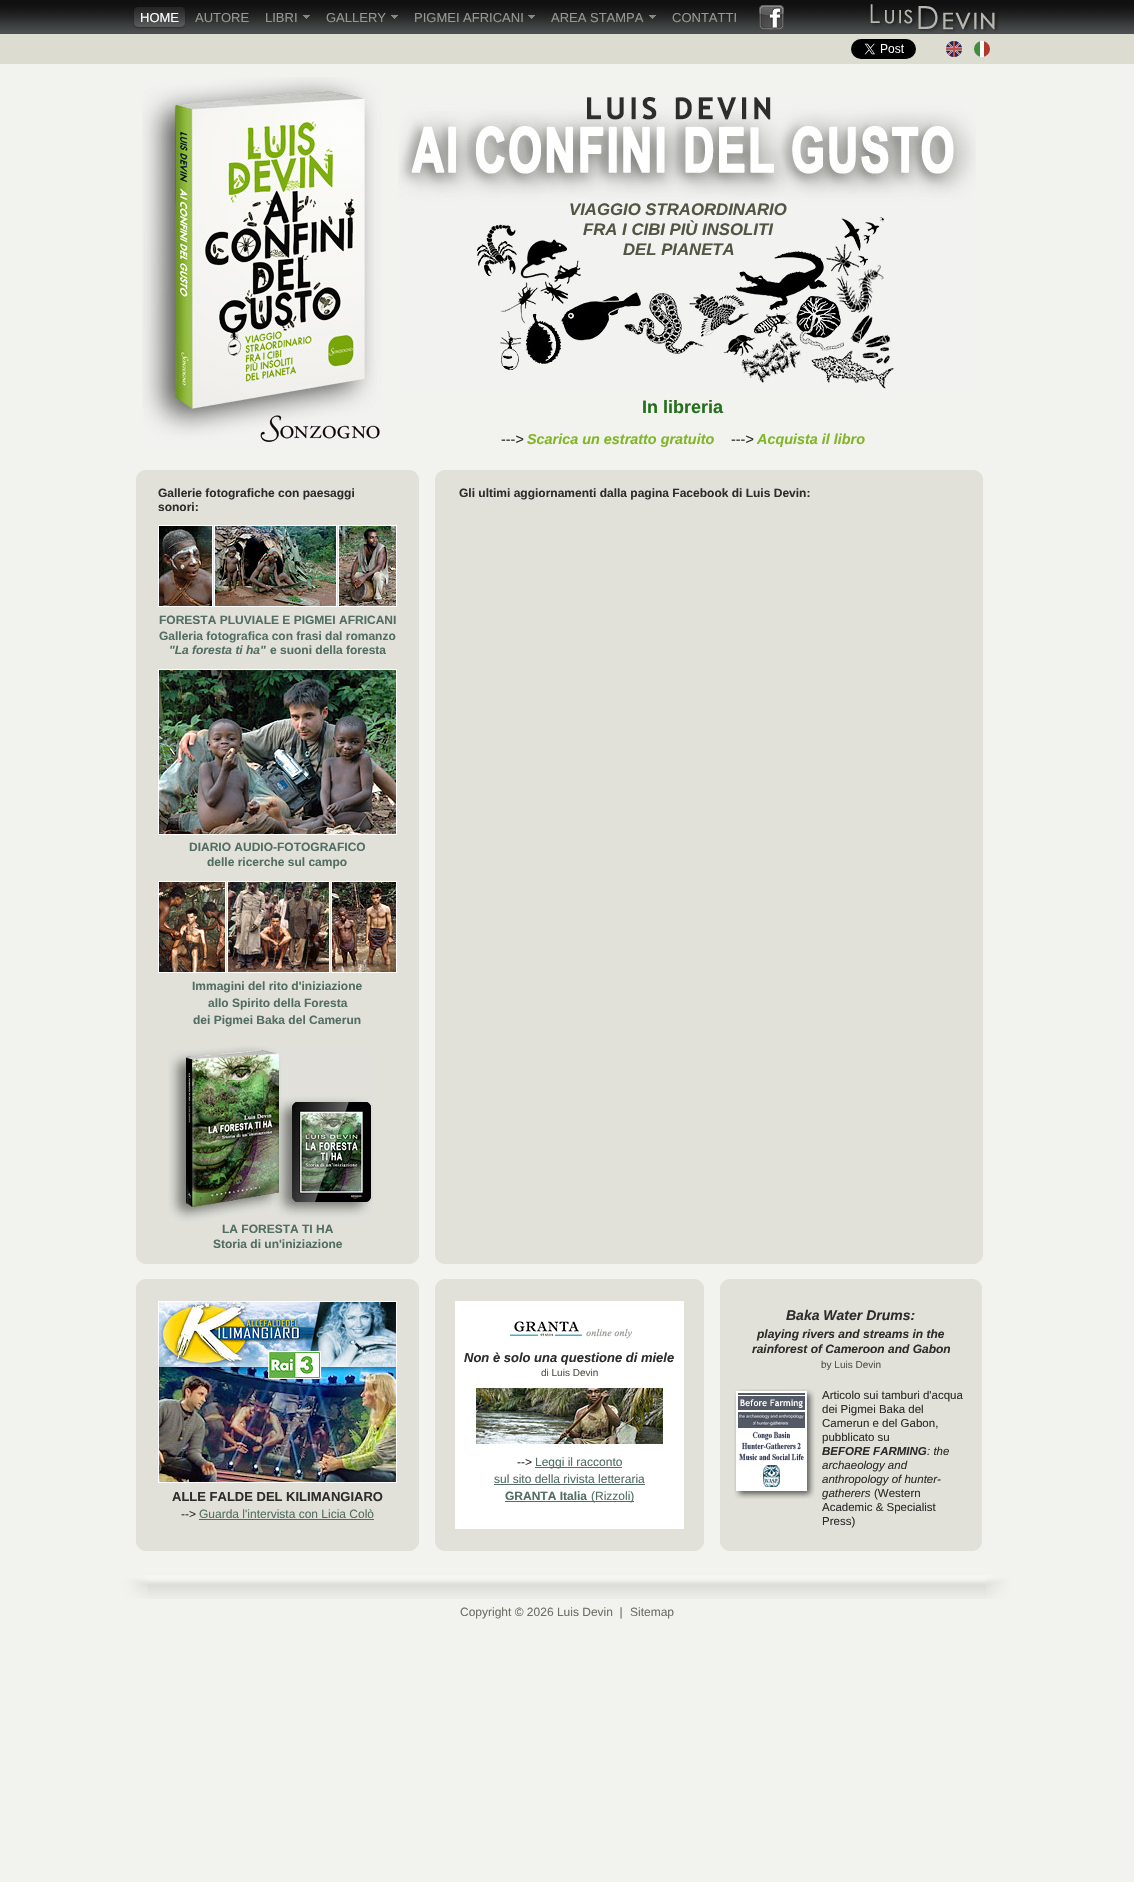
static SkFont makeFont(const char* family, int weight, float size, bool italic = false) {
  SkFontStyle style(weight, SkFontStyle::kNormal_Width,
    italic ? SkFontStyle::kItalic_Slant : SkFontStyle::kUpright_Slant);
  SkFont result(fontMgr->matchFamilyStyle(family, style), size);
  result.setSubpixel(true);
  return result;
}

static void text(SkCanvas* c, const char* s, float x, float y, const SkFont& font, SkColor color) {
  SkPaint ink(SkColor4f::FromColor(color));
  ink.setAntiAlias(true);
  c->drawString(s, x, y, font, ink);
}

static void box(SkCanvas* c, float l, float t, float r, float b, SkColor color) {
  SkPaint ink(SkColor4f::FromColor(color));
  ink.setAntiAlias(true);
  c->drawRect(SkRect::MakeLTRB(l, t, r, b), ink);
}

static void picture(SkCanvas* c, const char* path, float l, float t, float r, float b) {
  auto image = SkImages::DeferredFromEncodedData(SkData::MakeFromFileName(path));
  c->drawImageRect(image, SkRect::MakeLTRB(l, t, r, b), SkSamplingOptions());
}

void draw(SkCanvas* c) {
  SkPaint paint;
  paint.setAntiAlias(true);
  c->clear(0xfff2f2ef);
  picture(c, "img_01.png", 0, 0, 1134, 34);
  picture(c, "img_02.png", 870, 4, 999, 33);
  picture(c, "img_03.png", 133, 7, 181, 29);
  picture(c, "img_04.png", 181, 7, 187, 29);
  SkFont face1 = makeFont("Liberation Sans", 400, 13);
  text(c, "HOME", 140, 22, face1, 0xffffffff);
  text(c, "AUTORE", 195, 22, face1, 0xff979792);
  picture(c, "img_05.png", 302, 15, 310, 19);
  text(c, "LIBRI", 265, 22, face1, 0xff979792);
  picture(c, "img_06.png", 391, 15, 398, 19);
  text(c, "GALLERY", 326, 22, face1, 0xff979792);
  picture(c, "img_07.png", 528, 15, 536, 19);
  text(c, "PIGMEI AFRICANI", 414, 22, face1, 0xff979792);
  picture(c, "img_08.png", 648, 15, 656, 19);
  text(c, "AREA STAMPA", 551, 22, face1, 0xff979792);
  text(c, "CONTATTI", 672, 22, face1, 0xff979792);
  picture(c, "img_09.png", 759, 5, 784, 30);
  picture(c, "img_10.png", 142, 77, 382, 448);
  picture(c, "img_11.png", 398, 96, 976, 390);
  SkFont face2 = makeFont("Liberation Sans", 700, 16.75f, true);
  text(c, "VIAGGIO STRAORDINARIO", 569, 215, face2, 0xff525544);
  text(c, "FRA I CIBI PIÙ INSOLITI", 583, 235, face2, 0xff525544);
  text(c, "DEL PIANETA", 623, 255, face2, 0xff525544);
  SkFont face3 = makeFont("Liberation Sans", 700, 18);
  text(c, "In libreria", 642, 413, face3, 0xff246e1c);
  SkFont face4 = makeFont("Liberation Sans", 400, 14.4f);
  text(c, "--->", 501, 444, face4, 0xff2d2d2b);
  SkFont face5 = makeFont("Liberation Sans", 700, 14.4f, true);
  text(c, "Scarica un estratto gratuito", 527, 444, face5, 0xff82b629);
  text(c, "--->", 731, 444, face4, 0xff2d2d2b);
  text(c, "Acquista il libro", 757, 444, face5, 0xff82b629);
  box(c, 136, 470, 419, 1264, 0xffe1e1da);
  picture(c, "img_12.png", 136, 470, 144, 478);
  picture(c, "img_13.png", 411, 470, 419, 478);
  SkFont face6 = makeFont("Liberation Sans", 700, 12);
  text(c, "Gallerie fotografiche con paesaggi", 158, 497, face6, 0xff2d2d2b);
  text(c, "sonori:", 158, 511, face6, 0xff2d2d2b);
  paint.setStyle(SkPaint::kStroke_Style);
  paint.setStrokeWidth(1);
  paint.setColor(0xffffffff);
  c->drawRect(SkRect::MakeLTRB(158.5f, 525.5f, 212.5f, 606.5f), paint);
  picture(c, "img_14.png", 159, 526, 212, 606);
  c->drawRect(SkRect::MakeLTRB(214.5f, 525.5f, 336.5f, 606.5f), paint);
  picture(c, "img_15.png", 215, 526, 336, 606);
  c->drawRect(SkRect::MakeLTRB(338.5f, 525.5f, 396.5f, 606.5f), paint);
  picture(c, "img_16.png", 339, 526, 396, 606);
  text(c, "FORESTA PLUVIALE E PIGMEI AFRICANI", 159, 624, face6, 0xff526e62);
  text(c, "Galleria fotografica con frasi dal romanzo", 159, 640, face6, 0xff526e62);
  SkFont face7 = makeFont("Liberation Sans", 700, 12, true);
  text(c, "\"La foresta ti ha\"", 169, 654, face7, 0xff526e62);
  text(c, "e suoni della foresta", 270, 654, face6, 0xff526e62);
  c->drawRect(SkRect::MakeLTRB(158.5f, 669.5f, 396.5f, 834.5f), paint);
  picture(c, "img_17.png", 159, 670, 396, 834);
  text(c, "DIARIO AUDIO-FOTOGRAFICO", 189, 851, face6, 0xff526e62);
  text(c, "delle ricerche sul campo", 207, 866, face6, 0xff526e62);
  c->drawRect(SkRect::MakeLTRB(158.5f, 881.5f, 225.5f, 972.5f), paint);
  picture(c, "img_18.png", 159, 882, 225, 972);
  c->drawRect(SkRect::MakeLTRB(227.5f, 881.5f, 329.5f, 972.5f), paint);
  picture(c, "img_19.png", 228, 882, 329, 972);
  c->drawRect(SkRect::MakeLTRB(331.5f, 881.5f, 396.5f, 972.5f), paint);
  picture(c, "img_20.png", 332, 882, 396, 972);
  text(c, "Immagini del rito d'iniziazione", 192, 990, face6, 0xff526e62);
  text(c, "allo Spirito della Foresta", 208, 1007, face6, 0xff526e62);
  text(c, "dei Pigmei Baka del Camerun", 193, 1024, face6, 0xff526e62);
  picture(c, "img_21.png", 168, 1046, 375, 1222);
  text(c, "LA FORESTA TI HA", 222, 1233, face6, 0xff526e62);
  text(c, "Storia di un'iniziazione", 213, 1248, face6, 0xff526e62);
  picture(c, "img_22.png", 136, 1256, 144, 1264);
  picture(c, "img_23.png", 411, 1256, 419, 1264);
  box(c, 435, 470, 983, 1264, 0xffe1e1da);
  picture(c, "img_12.png", 435, 470, 443, 478);
  picture(c, "img_13.png", 975, 470, 983, 478);
  text(c, "Gli ultimi aggiornamenti dalla pagina Facebook di Luis Devin:", 459, 497, face6, 0xff2d2d2b);
  picture(c, "img_22.png", 435, 1256, 443, 1264);
  picture(c, "img_23.png", 975, 1256, 983, 1264);
  box(c, 136, 1279, 419, 1551, 0xffe1e1da);
  picture(c, "img_12.png", 136, 1279, 144, 1287);
  picture(c, "img_13.png", 411, 1279, 419, 1287);
  c->drawRect(SkRect::MakeLTRB(158.5f, 1301.5f, 396.5f, 1482.5f), paint);
  picture(c, "img_24.png", 159, 1302, 396, 1482);
  SkFont face8 = makeFont("Liberation Sans", 700, 13);
  text(c, "ALLE FALDE DEL KILIMANGIARO", 172, 1501, face8, 0xff2d2d2b);
  SkFont face9 = makeFont("Liberation Sans", 400, 12);
  text(c, "-->", 181, 1518, face9, 0xff2d2d2b);
  text(c, "Guarda l'intervista con Licia Colò", 199, 1518, face9, 0xff526e62);
  box(c, 199, 1519, 374, 1520, 0xff526e62);
  picture(c, "img_22.png", 136, 1543, 144, 1551);
  picture(c, "img_23.png", 411, 1543, 419, 1551);
  box(c, 435, 1279, 704, 1551, 0xffe1e1da);
  picture(c, "img_12.png", 435, 1279, 443, 1287);
  picture(c, "img_13.png", 696, 1279, 704, 1287);
  box(c, 455, 1301, 684, 1529, 0xffffffff);
  picture(c, "img_25.png", 510, 1321, 632, 1339);
  SkFont face10 = makeFont("Liberation Sans", 700, 13, true);
  text(c, "Non è solo una questione di miele", 464, 1362, face10, 0xff2d2d2b);
  SkFont face11 = makeFont("Liberation Sans", 400, 10);
  text(c, "di Luis Devin", 541, 1376, face11, 0xff525544);
  picture(c, "img_26.png", 476, 1388, 663, 1444);
  text(c, "-->", 517, 1466, face9, 0xff2d2d2b);
  box(c, 535, 1467, 622, 1468, 0xff526e62);
  text(c, "Leggi il racconto", 535, 1466, face9, 0xff526e62);
  text(c, "sul sito della rivista letteraria", 494, 1483, face9, 0xff526e62);
  box(c, 494, 1484, 645, 1485, 0xff526e62);
  text(c, "GRANTA Italia", 505, 1500, face6, 0xff526e62);
  box(c, 505, 1501, 634, 1502, 0xff526e62);
  text(c, "(Rizzoli)", 591, 1500, face9, 0xff526e62);
  picture(c, "img_22.png", 435, 1543, 443, 1551);
  picture(c, "img_23.png", 696, 1543, 704, 1551);
  box(c, 720, 1279, 982, 1551, 0xffe1e1da);
  picture(c, "img_12.png", 720, 1279, 728, 1287);
  picture(c, "img_13.png", 974, 1279, 982, 1287);
  SkFont face12 = makeFont("Liberation Sans", 700, 14, true);
  text(c, "Baka Water Drums:", 786, 1320, face12, 0xff2d2d2b);
  text(c, "playing rivers and streams in the", 757, 1338, face7, 0xff2d2d2b);
  text(c, "rainforest of Cameroon and Gabon", 752, 1353, face7, 0xff2d2d2b);
  text(c, "by Luis Devin", 821, 1368, face11, 0xff525544);
  picture(c, "img_27.png", 734, 1389, 815, 1499);
  picture(c, "img_28.png", 736, 1391, 807, 1491);
  SkFont face13 = makeFont("Liberation Sans", 400, 11.5f);
  text(c, "Articolo sui tamburi d'acqua", 822, 1399, face13, 0xff2d2d2b);
  text(c, "dei Pigmei Baka del", 822, 1413, face13, 0xff2d2d2b);
  text(c, "Camerun e del Gabon,", 822, 1427, face13, 0xff2d2d2b);
  text(c, "pubblicato su", 822, 1441, face13, 0xff2d2d2b);
  SkFont face14 = makeFont("Liberation Sans", 700, 11.5f, true);
  text(c, "BEFORE FARMING", 822, 1455, face14, 0xff2d2d2b);
  SkFont face15 = makeFont("Liberation Sans", 400, 11.5f, true);
  text(c, ": the", 927, 1455, face15, 0xff2d2d2b);
  text(c, "archaeology and", 822, 1469, face15, 0xff2d2d2b);
  text(c, "anthropology of hunter-", 822, 1483, face15, 0xff2d2d2b);
  text(c, "gatherers", 822, 1497, face15, 0xff2d2d2b);
  text(c, "(Western", 874, 1497, face13, 0xff2d2d2b);
  text(c, "Academic & Specialist", 822, 1511, face13, 0xff2d2d2b);
  text(c, "Press)", 822, 1525, face13, 0xff2d2d2b);
  picture(c, "img_22.png", 720, 1543, 728, 1551);
  picture(c, "img_23.png", 974, 1543, 982, 1551);
  box(c, 0, 34, 1134, 64, 0xffdcdcd1);
  picture(c, "img_29.png", 851, 39, 916, 59);
  picture(c, "img_30.png", 946, 41, 962, 57);
  picture(c, "img_31.png", 974, 41, 990, 57);
  picture(c, "img_32.png", 148, 1575, 986, 1599);
  picture(c, "img_33.png", 122, 1575, 148, 1599);
  picture(c, "img_34.png", 986, 1575, 1012, 1599);
  text(c, "Copyright © 2026 Luis Devin  |", 460, 1616, face9, 0xff6f6f67);
  text(c, "Sitemap", 630, 1616, face9, 0xff6f6f67);
}
